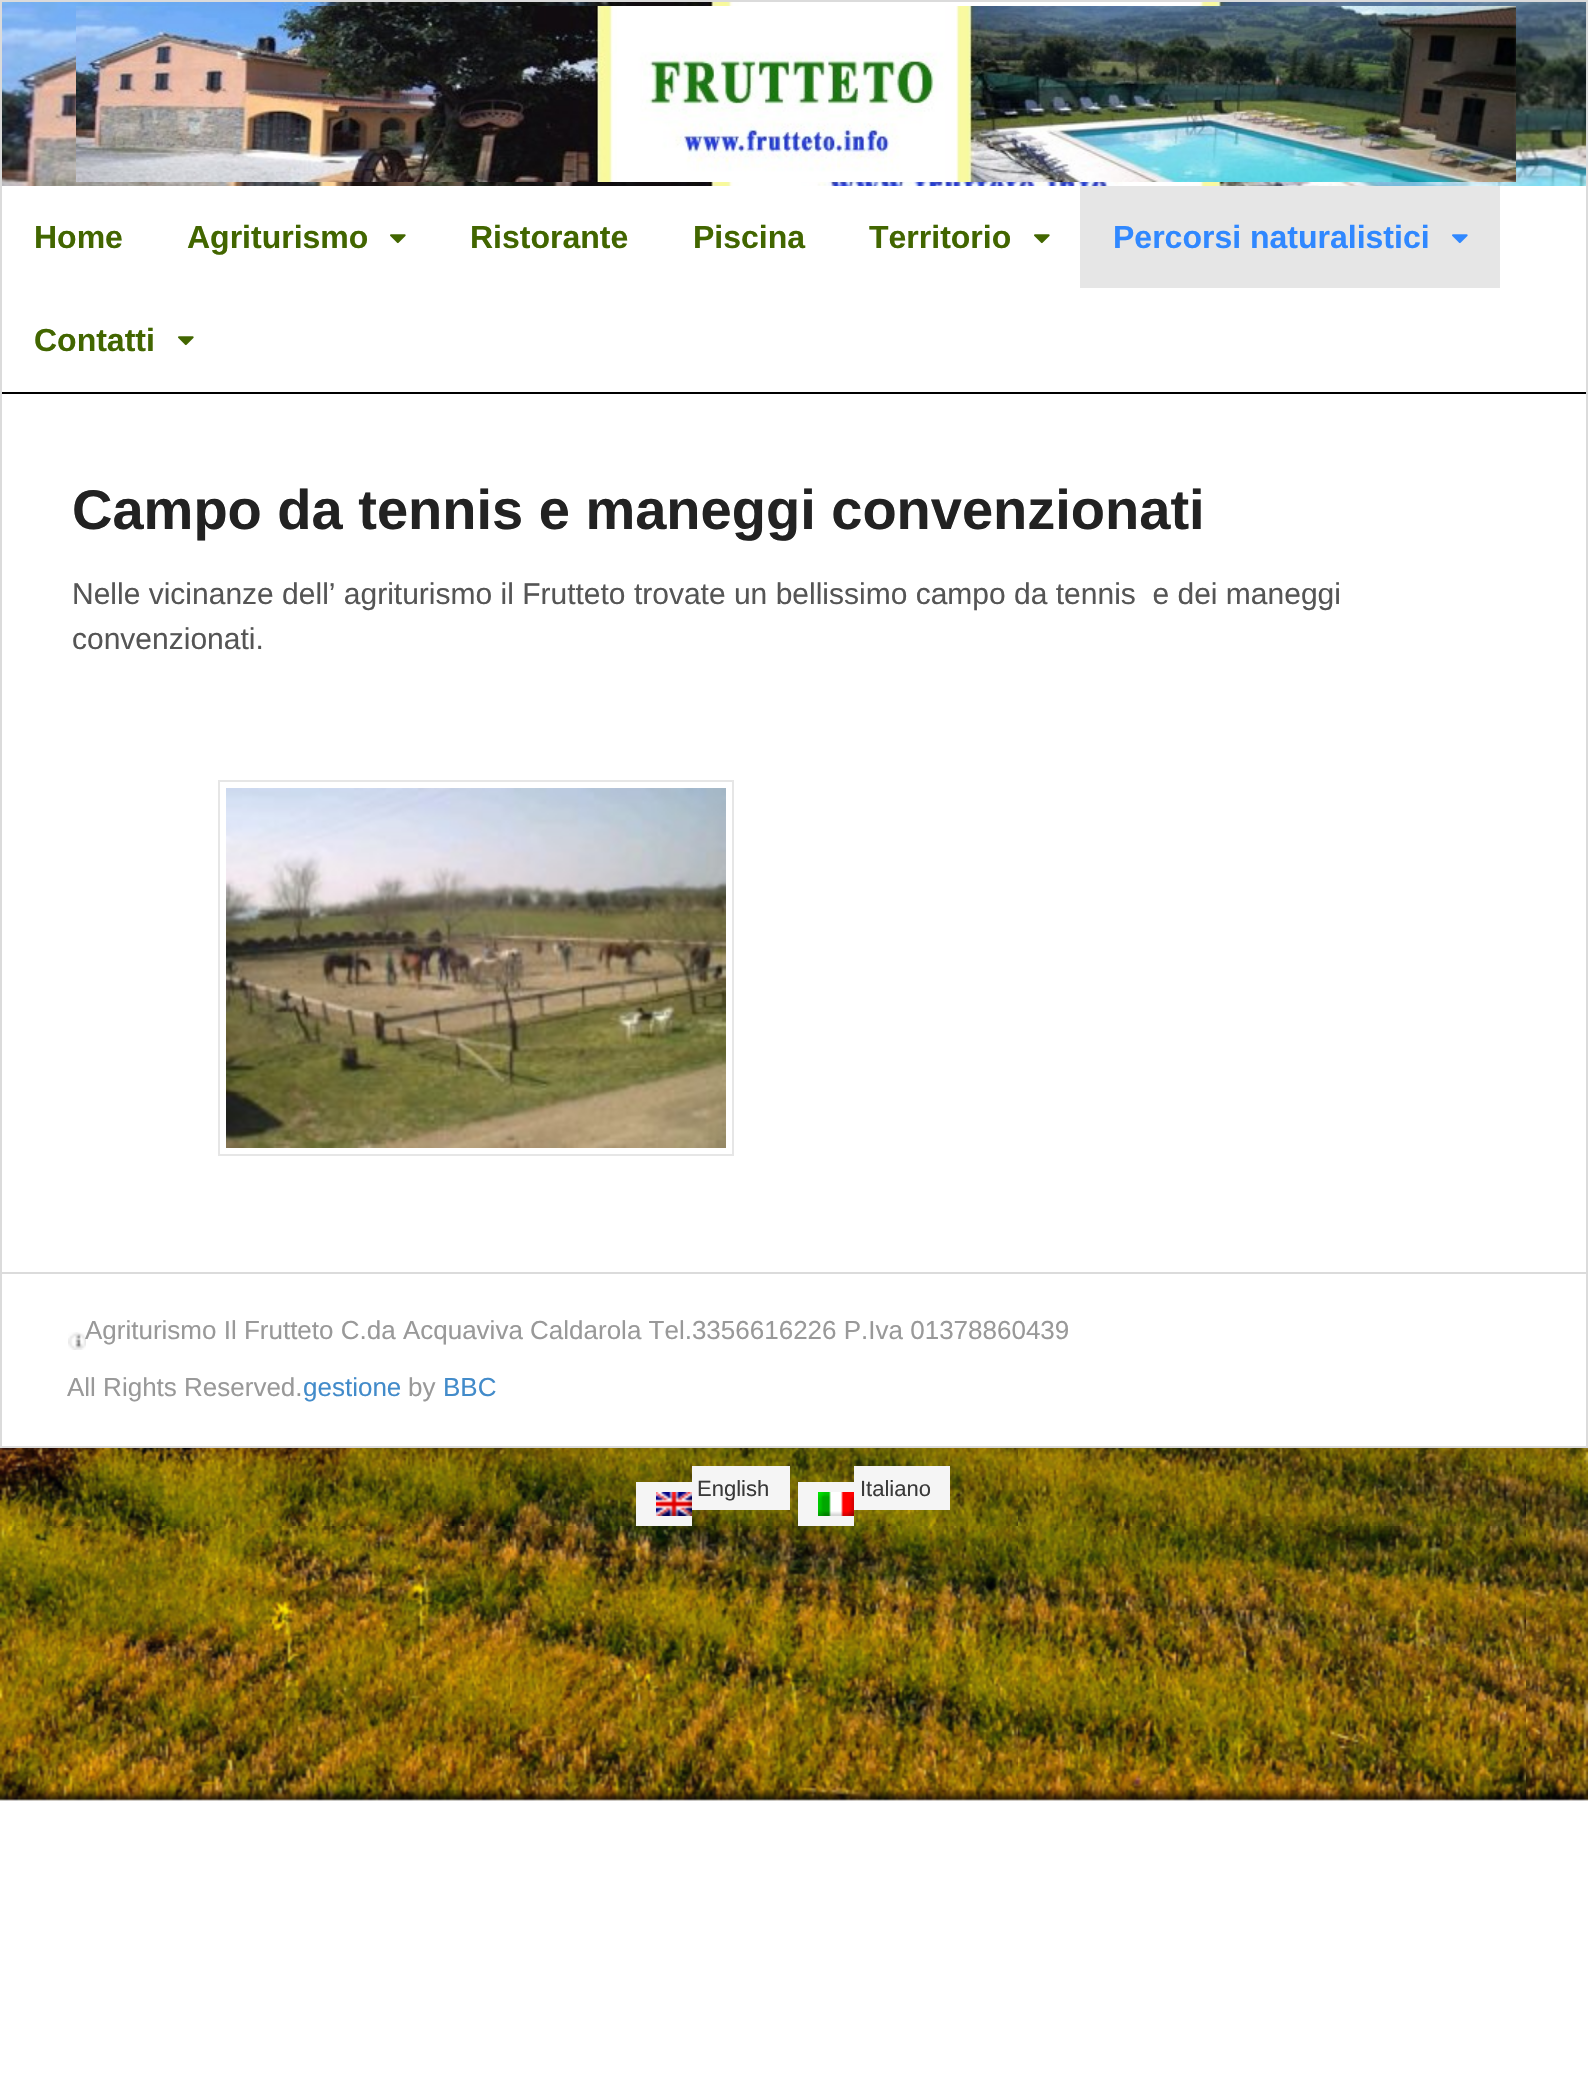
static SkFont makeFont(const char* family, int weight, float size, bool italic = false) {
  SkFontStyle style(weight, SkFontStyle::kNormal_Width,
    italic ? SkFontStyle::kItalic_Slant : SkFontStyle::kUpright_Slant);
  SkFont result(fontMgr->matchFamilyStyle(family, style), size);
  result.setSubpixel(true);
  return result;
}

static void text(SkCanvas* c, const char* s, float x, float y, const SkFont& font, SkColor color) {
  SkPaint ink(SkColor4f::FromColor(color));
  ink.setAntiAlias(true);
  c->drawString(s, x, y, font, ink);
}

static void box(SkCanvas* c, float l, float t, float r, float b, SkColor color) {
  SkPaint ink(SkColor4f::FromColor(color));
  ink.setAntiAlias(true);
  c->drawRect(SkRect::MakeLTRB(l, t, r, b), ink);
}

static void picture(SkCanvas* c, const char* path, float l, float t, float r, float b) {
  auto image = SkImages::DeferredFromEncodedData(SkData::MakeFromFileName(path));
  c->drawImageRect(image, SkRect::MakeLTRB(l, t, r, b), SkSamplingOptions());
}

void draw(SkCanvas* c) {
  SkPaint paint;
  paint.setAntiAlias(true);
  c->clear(0xffffffff);
  picture(c, "img_01.png", 0, 1448, 1588, 1801);
  paint.setColor(0x1a000000);
  paint.setMaskFilter(SkMaskFilter::MakeBlur(kNormal_SkBlurStyle, 5));
  c->drawRect(SkRect::MakeLTRB(0, 2, 1588, 1450), paint);
  paint.setMaskFilter(nullptr);
  box(c, 2, 186, 1586, 1446, 0xffffffff);
  paint.setStyle(SkPaint::kStroke_Style);
  paint.setStrokeWidth(2);
  paint.setColor(0xffdbdbdb);
  c->drawRect(SkRect::MakeLTRB(1, 1, 1587, 1447), paint);
  picture(c, "img_02.png", 2, 2, 1586, 186);
  picture(c, "img_03.png", 76, 6, 1516, 182);
  box(c, 2, 392, 1586, 394, 0xff000000);
  SkFont face1 = makeFont("Liberation Sans", 700, 32);
  text(c, "Home", 34, 248, face1, 0xff426600);
  text(c, "Agriturismo", 187, 248, face1, 0xff426600);
  picture(c, "img_04.png", 390, 234, 406, 244);
  text(c, "Ristorante", 470, 248, face1, 0xff426600);
  text(c, "Piscina", 693, 248, face1, 0xff426600);
  text(c, "Territorio", 869, 248, face1, 0xff426600);
  picture(c, "img_04.png", 1034, 234, 1050, 244);
  box(c, 1080, 186, 1500, 288, 0xffe6e6e6);
  text(c, "Percorsi naturalistici", 1113, 248, face1, 0xff3088ff);
  picture(c, "img_05.png", 1452, 234, 1468, 244);
  text(c, "Contatti", 34, 351, face1, 0xff426600);
  picture(c, "img_04.png", 178, 336, 194, 346);
  SkFont face2 = makeFont("Liberation Sans", 700, 56);
  text(c, "Campo da tennis e maneggi convenzionati", 72, 529, face2, 0xff222222);
  SkFont face3 = makeFont("Liberation Sans", 400, 30);
  text(c, "Nelle vicinanze dell’ agriturismo il Frutteto trovate un bellissimo campo da tennis  e dei maneggi", 72, 604, face3, 0xff555555);
  text(c, "convenzionati.", 72, 649, face3, 0xff555555);
  paint.setColor(0xffe6e6e6);
  c->drawRect(SkRect::MakeLTRB(219, 781, 733, 1155), paint);
  picture(c, "img_06.png", 226, 788, 726, 1148);
  box(c, 2, 1272, 1586, 1274, 0xffdbdbdb);
  picture(c, "img_07.png", 68, 1332, 86, 1350);
  SkFont face4 = makeFont("Liberation Sans", 400, 26);
  text(c, "Agriturismo Il Frutteto C.da Acquaviva Caldarola Tel.3356616226 P.Iva 01378860439", 85, 1339, face4, 0xff999999);
  text(c, "All Rights Reserved.", 67, 1396, face4, 0xff999999);
  text(c, "gestione", 303, 1396, face4, 0xff428bca);
  text(c, "by", 408, 1396, face4, 0xff999999);
  text(c, "BBC", 443, 1396, face4, 0xff428bca);
  box(c, 692, 1466, 790, 1510, 0xfff5f5f5);
  SkFont face5 = makeFont("Liberation Sans", 400, 22);
  text(c, "English", 697, 1496, face5, 0xff393939);
  box(c, 636, 1482, 692, 1526, 0xfff5f5f5);
  box(c, 854, 1466, 950, 1510, 0xfff5f5f5);
  text(c, "Italiano", 860, 1496, face5, 0xff393939);
  box(c, 798, 1482, 854, 1526, 0xfff5f5f5);
  picture(c, "img_08.png", 656, 1492, 692, 1516);
  picture(c, "img_09.png", 818, 1492, 854, 1516);
}
